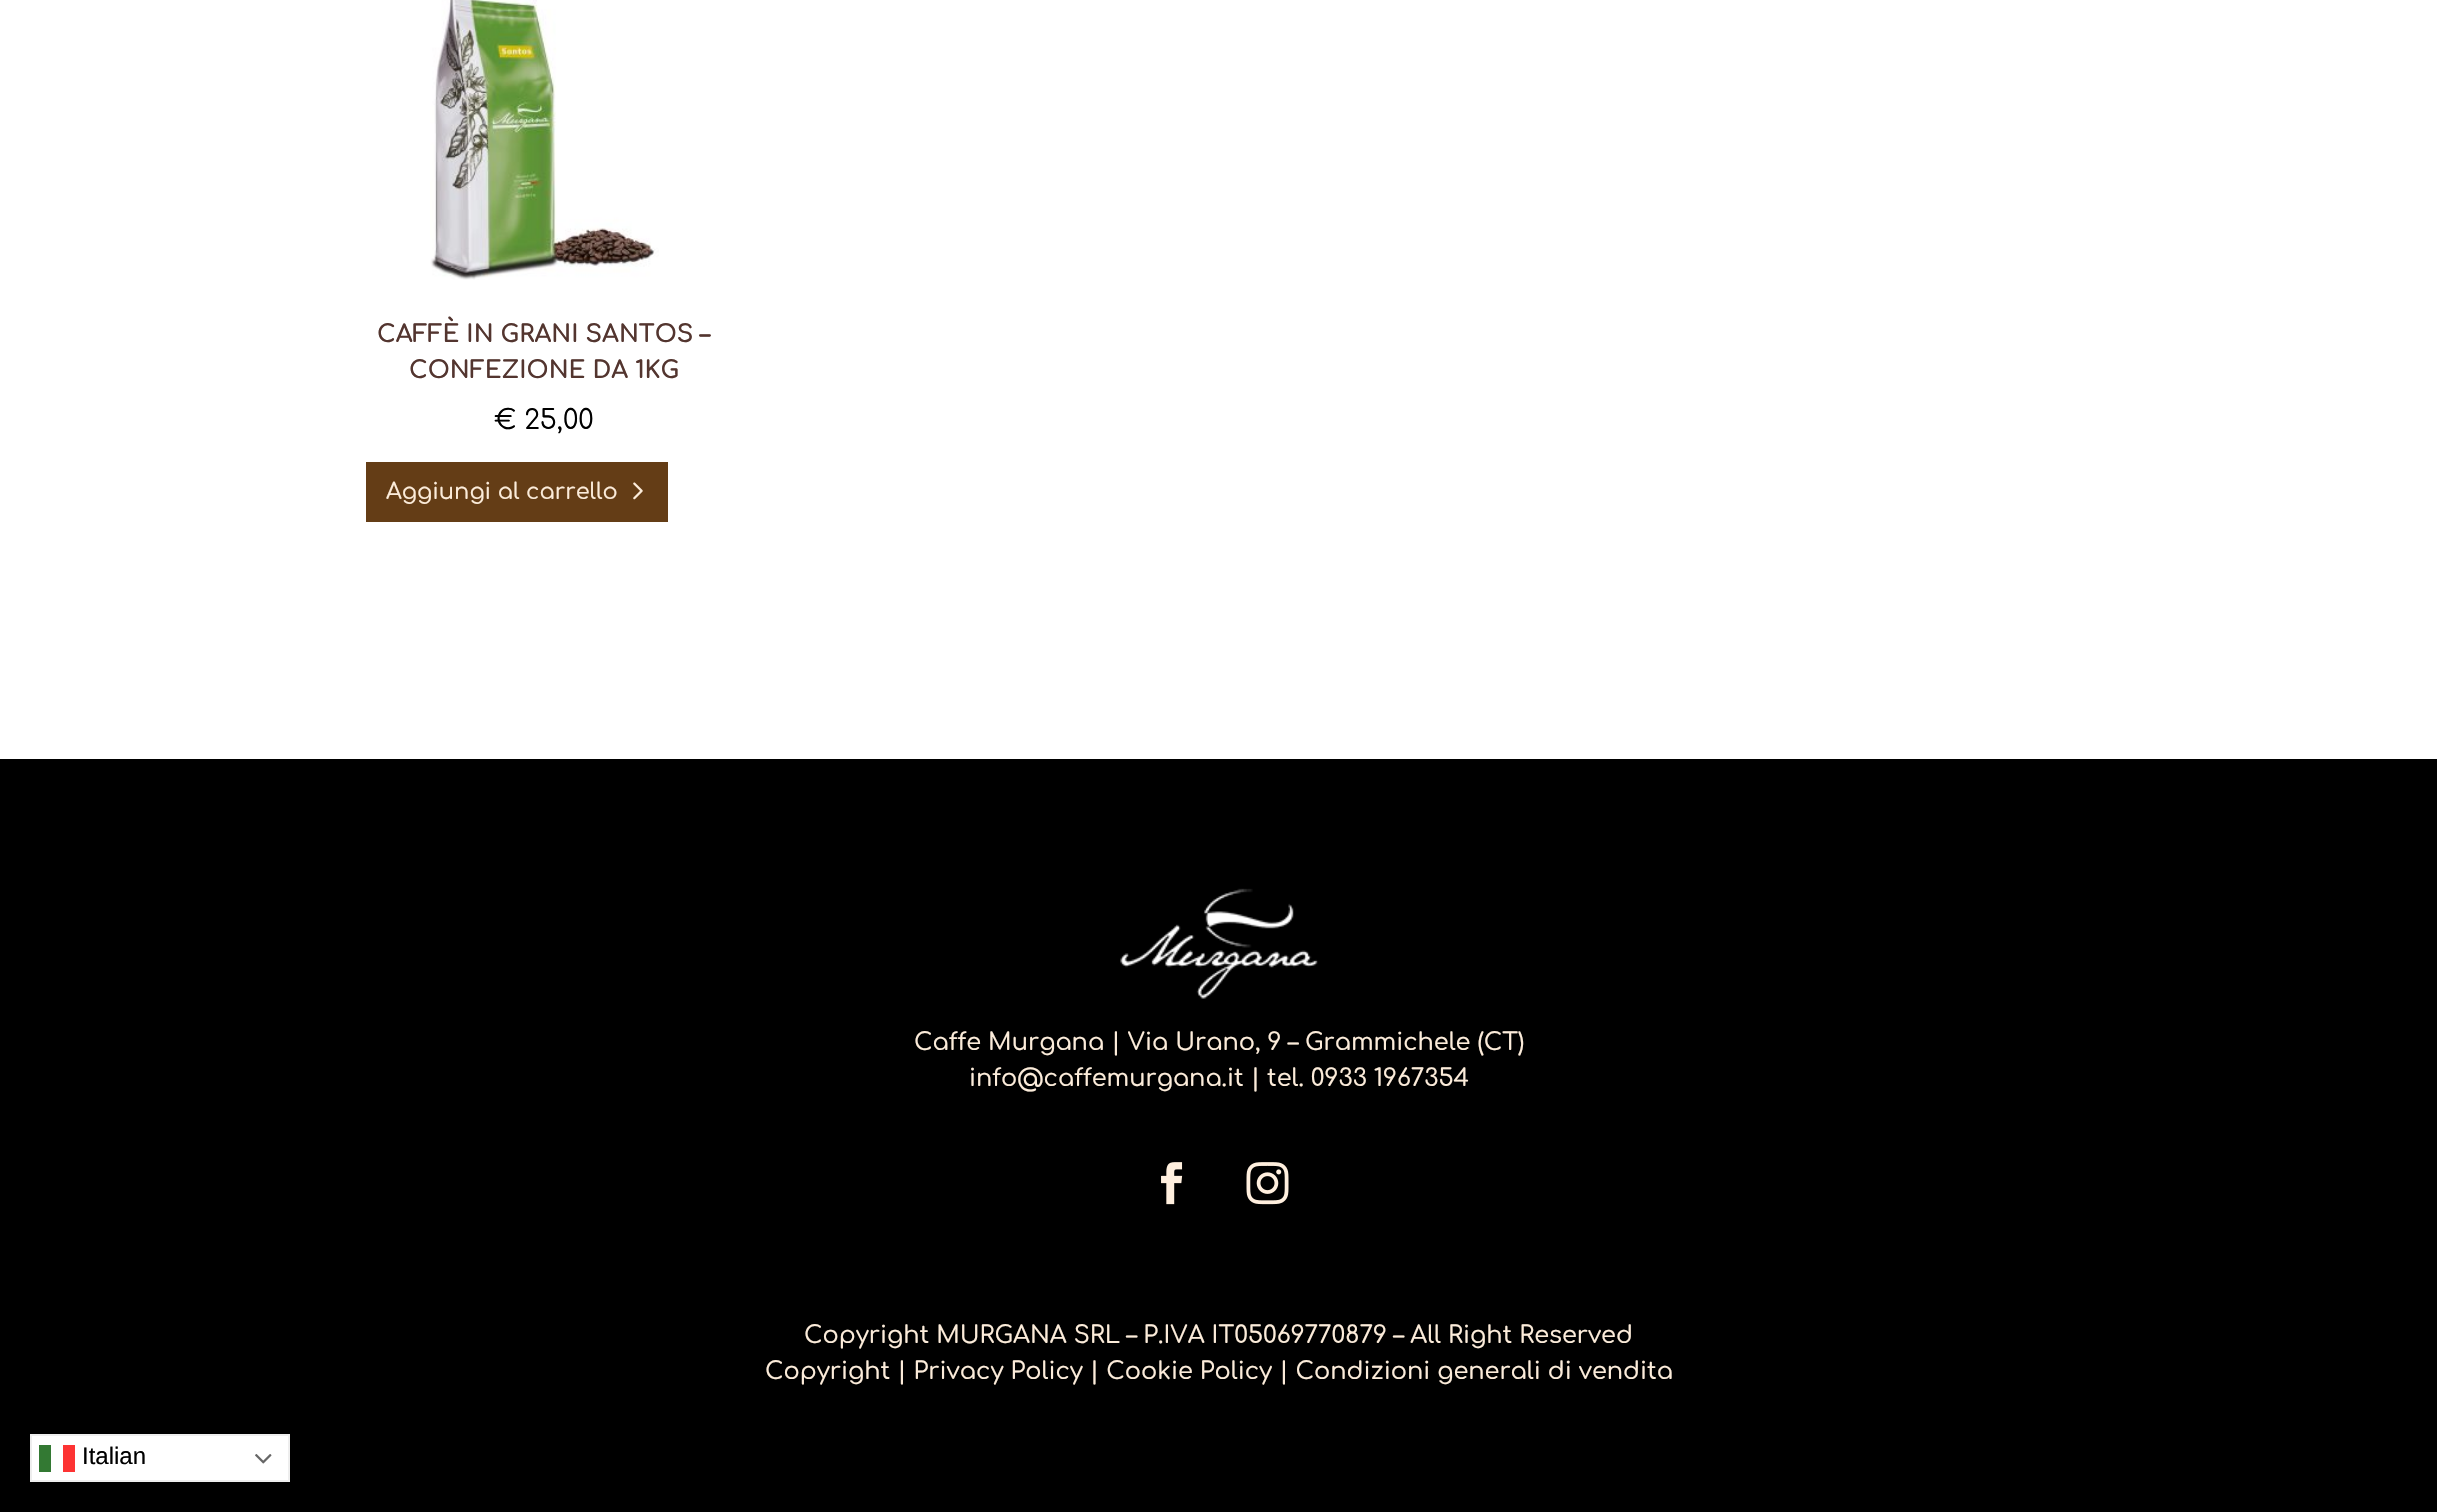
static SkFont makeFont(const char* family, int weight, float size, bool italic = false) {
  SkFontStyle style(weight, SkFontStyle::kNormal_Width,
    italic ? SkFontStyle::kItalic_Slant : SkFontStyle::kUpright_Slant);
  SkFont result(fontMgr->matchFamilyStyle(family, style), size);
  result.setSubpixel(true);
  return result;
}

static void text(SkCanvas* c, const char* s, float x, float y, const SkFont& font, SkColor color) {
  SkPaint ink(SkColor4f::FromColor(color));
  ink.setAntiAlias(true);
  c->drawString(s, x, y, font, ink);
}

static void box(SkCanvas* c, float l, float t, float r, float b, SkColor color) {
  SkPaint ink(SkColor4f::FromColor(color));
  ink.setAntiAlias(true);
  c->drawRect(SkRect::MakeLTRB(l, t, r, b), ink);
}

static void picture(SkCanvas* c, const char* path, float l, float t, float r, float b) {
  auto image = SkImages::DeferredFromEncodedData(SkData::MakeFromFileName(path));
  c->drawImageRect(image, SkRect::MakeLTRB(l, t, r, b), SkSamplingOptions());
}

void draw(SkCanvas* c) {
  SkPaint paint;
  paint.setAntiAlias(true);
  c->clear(0xffffffff);
  picture(c, "img_01.png", 430, 0, 659, 280);
  SkFont face1 = makeFont("Comfortaa", 700, 24);
  text(c, "CAFFÈ IN GRANI SANTOS –", 377, 342, face1, 0xff53352f);
  text(c, "CONFEZIONE DA 1KG", 409, 378, face1, 0xff53352f);
  SkFont face2 = makeFont("Comfortaa", 400, 27);
  text(c, "€ 25,00", 494, 429, face2, 0xff000000);
  box(c, 366, 462, 668, 522, 0xff643d16);
  SkFont face3 = makeFont("Comfortaa", 500, 22.5f);
  text(c, "Aggiungi al carrello", 386, 499, face3, 0xfffcecda);
  picture(c, "img_02.png", 633, 482, 643, 500);
  box(c, 0, 759, 2437, 1512, 0xff000000);
  picture(c, "img_03.png", 1120, 888, 1318, 999);
  SkFont face4 = makeFont("Comfortaa", 500, 24);
  text(c, "Caffe Murgana | Via Urano, 9 – Grammichele (CT)", 914, 1050, face4, 0xfffcecda);
  text(c, "info@caffemurgana.it | tel. 0933 1967354", 969, 1086, face4, 0xfffcecda);
  picture(c, "img_04.png", 1161, 1162, 1183, 1205);
  picture(c, "img_05.png", 1246, 1162, 1289, 1205);
  text(c, "Copyright MURGANA SRL – P.IVA IT05069770879 – All Right Reserved", 804, 1343, face4, 0xfffcecda);
  text(c, "Copyright | Privacy Policy | Cookie Policy | Condizioni generali di vendita", 765, 1379, face4, 0xfffcecda);
  paint.setColor(0xffffffff);
  c->drawRect(SkRect::MakeLTRB(31, 1435, 289, 1481), paint);
  paint.setStyle(SkPaint::kStroke_Style);
  paint.setStrokeWidth(2);
  paint.setColor(0xffeeeeee);
  c->drawRect(SkRect::MakeLTRB(31, 1435, 289, 1481), paint);
  box(c, 39, 1445, 51, 1472, 0xff337933);
  box(c, 63, 1445, 75, 1472, 0xfffd3333);
  SkFont face5 = makeFont("Liberation Sans", 400, 24);
  text(c, "Italian", 82, 1464, face5, 0xff000000);
  picture(c, "img_06.png", 255, 1454, 272, 1464);
}
